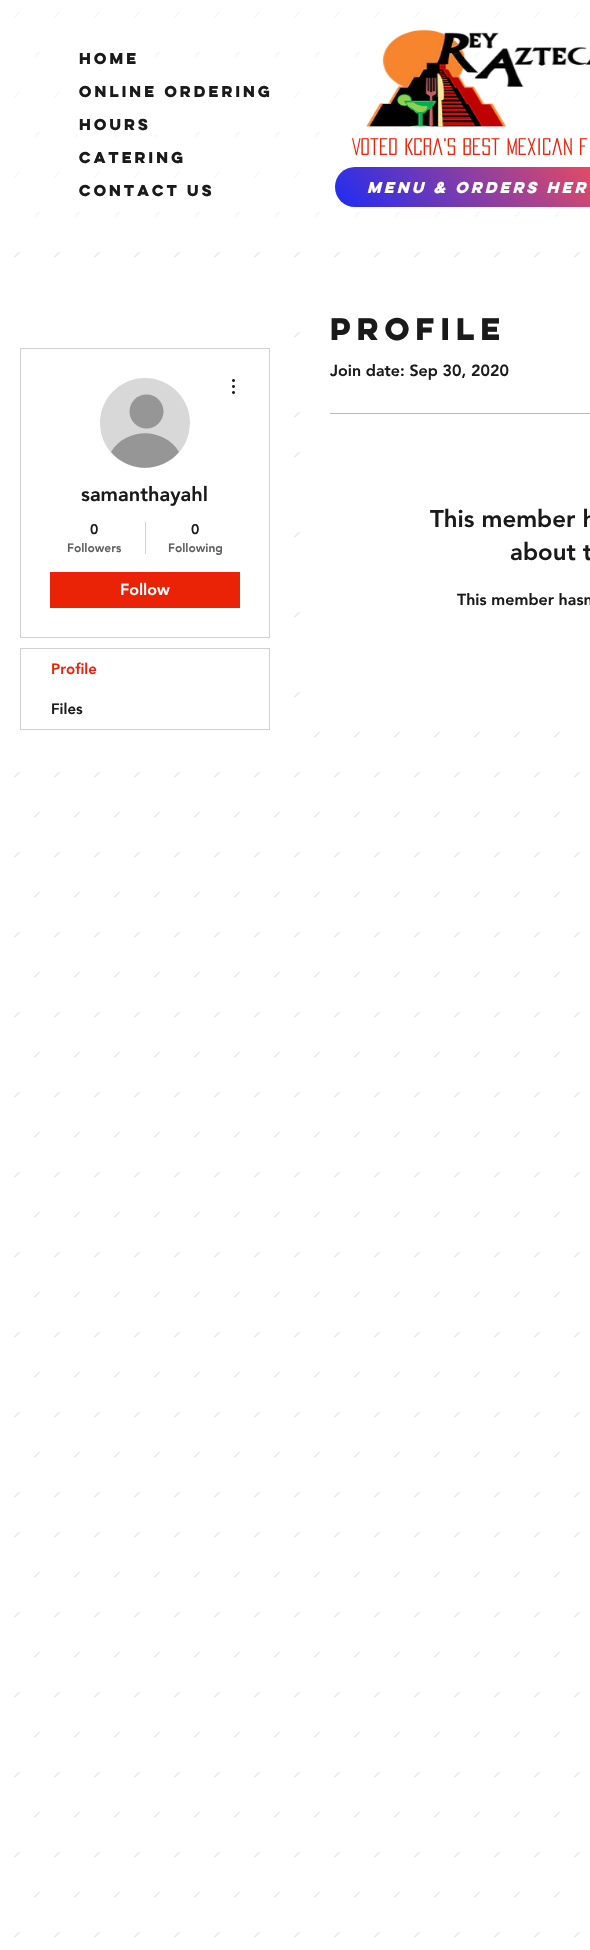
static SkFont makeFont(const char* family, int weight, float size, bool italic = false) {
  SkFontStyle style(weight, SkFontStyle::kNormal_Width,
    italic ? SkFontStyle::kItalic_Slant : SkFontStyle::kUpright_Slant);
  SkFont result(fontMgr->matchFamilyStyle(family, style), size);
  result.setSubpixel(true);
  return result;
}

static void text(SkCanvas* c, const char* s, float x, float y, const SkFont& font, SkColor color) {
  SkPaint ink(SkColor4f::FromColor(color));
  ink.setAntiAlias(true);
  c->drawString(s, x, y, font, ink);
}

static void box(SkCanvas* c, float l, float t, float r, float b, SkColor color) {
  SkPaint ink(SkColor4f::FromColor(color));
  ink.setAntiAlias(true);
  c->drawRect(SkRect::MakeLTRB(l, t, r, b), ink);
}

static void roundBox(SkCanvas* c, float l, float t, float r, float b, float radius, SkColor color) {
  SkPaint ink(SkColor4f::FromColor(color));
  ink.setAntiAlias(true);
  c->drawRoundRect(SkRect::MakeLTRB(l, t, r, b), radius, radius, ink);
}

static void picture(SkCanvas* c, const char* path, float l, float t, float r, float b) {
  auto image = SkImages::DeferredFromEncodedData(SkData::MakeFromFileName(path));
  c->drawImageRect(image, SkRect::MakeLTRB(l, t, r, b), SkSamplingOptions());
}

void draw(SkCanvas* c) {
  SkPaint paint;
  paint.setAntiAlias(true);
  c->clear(0xffffffff);
  picture(c, "img_01.png", 14, 12, 580, 1938);
  box(c, 14, 12, 580, 218, 0x99ffffff);
  box(c, 74, 52, 120, 58, 0xffffffff);
  SkFont face1 = makeFont("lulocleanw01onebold", 700, 14);
  text(c, "Home", 79, 64, face1, 0xff1a1a1a);
  box(c, 94, 92, 260, 98, 0xffffffff);
  text(c, "ONLINE ORDERING", 79, 97, face1, 0xff1a1a1a);
  box(c, 76, 132, 160, 135, 0xffffffff);
  text(c, "Hours", 79, 130, face1, 0xff1a1a1a);
  text(c, "Catering", 79, 163, face1, 0xff1a1a1a);
  text(c, "Contact Us", 79, 196, face1, 0xff1a1a1a);
  picture(c, "img_02.png", 366, 29, 590, 127);
  SkFont face2 = makeFont("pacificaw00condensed", 400, 21);
  text(c, "Voted Kcra's best Mexican F", 352, 155, face2, 0xffea2306);
  roundBox(c, 335, 167, 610, 207, 20, 0xff1d2cf3);
  {
    const SkColor colors[] = {0xffff4f4f, 0x00ff4f4f};
    const float stops[] = {0, 1};
    const SkPoint ends[] = {{579, 105}, {389, 269}};
    paint.setShader(SkGradientShader::MakeLinear(ends, colors, stops, 2, SkTileMode::kClamp));
    paint.setAlpha(255);
  }
  c->drawRoundRect(SkRect::MakeLTRB(335, 167, 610, 207), 20, 20, paint);
  SkFont face3 = makeFont("lulocleanw01onebold", 700, 14, true);
  text(c, "MENU & ORDERS HER", 367, 193, face3, 0xffffffff);
  box(c, 14, 291, 280, 738, 0xffffffff);
  paint.setStyle(SkPaint::kStroke_Style);
  paint.setStrokeWidth(1);
  paint.setShader(nullptr);
  paint.setColor(0xffd1d1d1);
  c->drawRect(SkRect::MakeLTRB(20.5f, 348.5f, 269.5f, 637.5f), paint);
  paint.setStyle(SkPaint::kFill_Style);
  paint.setColor(0xffd8d8d8);
  c->drawCircle(145, 423, 45, paint);
  paint.setColor(0xff969696);
  c->drawCircle(146.5f, 411.5f, 17, paint);
  c->drawPath(SkPathBuilder().moveTo(179, 452).cubicTo(161, 473, 129, 473, 111, 452).cubicTo(126, 427, 164, 427, 179, 452).close().detach(), paint);
  picture(c, "img_03.png", 232, 379, 235, 394);
  SkFont face4 = makeFont("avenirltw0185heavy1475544", 900, 20);
  text(c, "samanthayahl", 81, 501, face4, 0xff1a1a1a);
  SkFont face5 = makeFont("avenirltw0185heavy1475544", 900, 14);
  text(c, "0", 90, 534, face5, 0xff1a1a1a);
  SkFont face6 = makeFont("avenirltw0185heavy1475544", 900, 12);
  text(c, "Followers", 67, 552, face6, 0xff5f5f5f);
  box(c, 145, 522, 146, 554, 0xffd1d1d1);
  text(c, "0", 191, 534, face5, 0xff1a1a1a);
  text(c, "Following", 168, 552, face6, 0xff5f5f5f);
  box(c, 50, 572, 240, 608, 0xffea2306);
  SkFont face7 = makeFont("avenirltw0185heavy1475544", 900, 16);
  text(c, "Follow", 120, 595, face7, 0xffffffff);
  paint.setStyle(SkPaint::kStroke_Style);
  paint.setColor(0xffd1d1d1);
  c->drawRect(SkRect::MakeLTRB(20.5f, 648.5f, 269.5f, 729.5f), paint);
  SkFont face8 = makeFont("avenirltw0185heavy1475544", 900, 15);
  text(c, "Profile", 51, 674, face8, 0xffea2306);
  text(c, "Files", 51, 714, face8, 0xff1a1a1a);
  box(c, 314, 291, 580, 698, 0xffffffff);
  SkFont face9 = makeFont("lulocleanw01onebold", 700, 28);
  text(c, "Profile", 330, 340, face9, 0xff1a1a1a);
  text(c, "Join date: Sep 30, 2020", 330, 376, face7, 0xff1a1a1a);
  box(c, 330, 413, 590, 414, 0xffbababa);
  SkFont face10 = makeFont("avenirltw0185heavy1475544", 900, 24);
  text(c, "This member h", 430, 527, face10, 0xff1a1a1a);
  text(c, "about t", 510, 560, face10, 0xff1a1a1a);
  text(c, "This member hasn", 457, 605, face7, 0xff1a1a1a);
}
